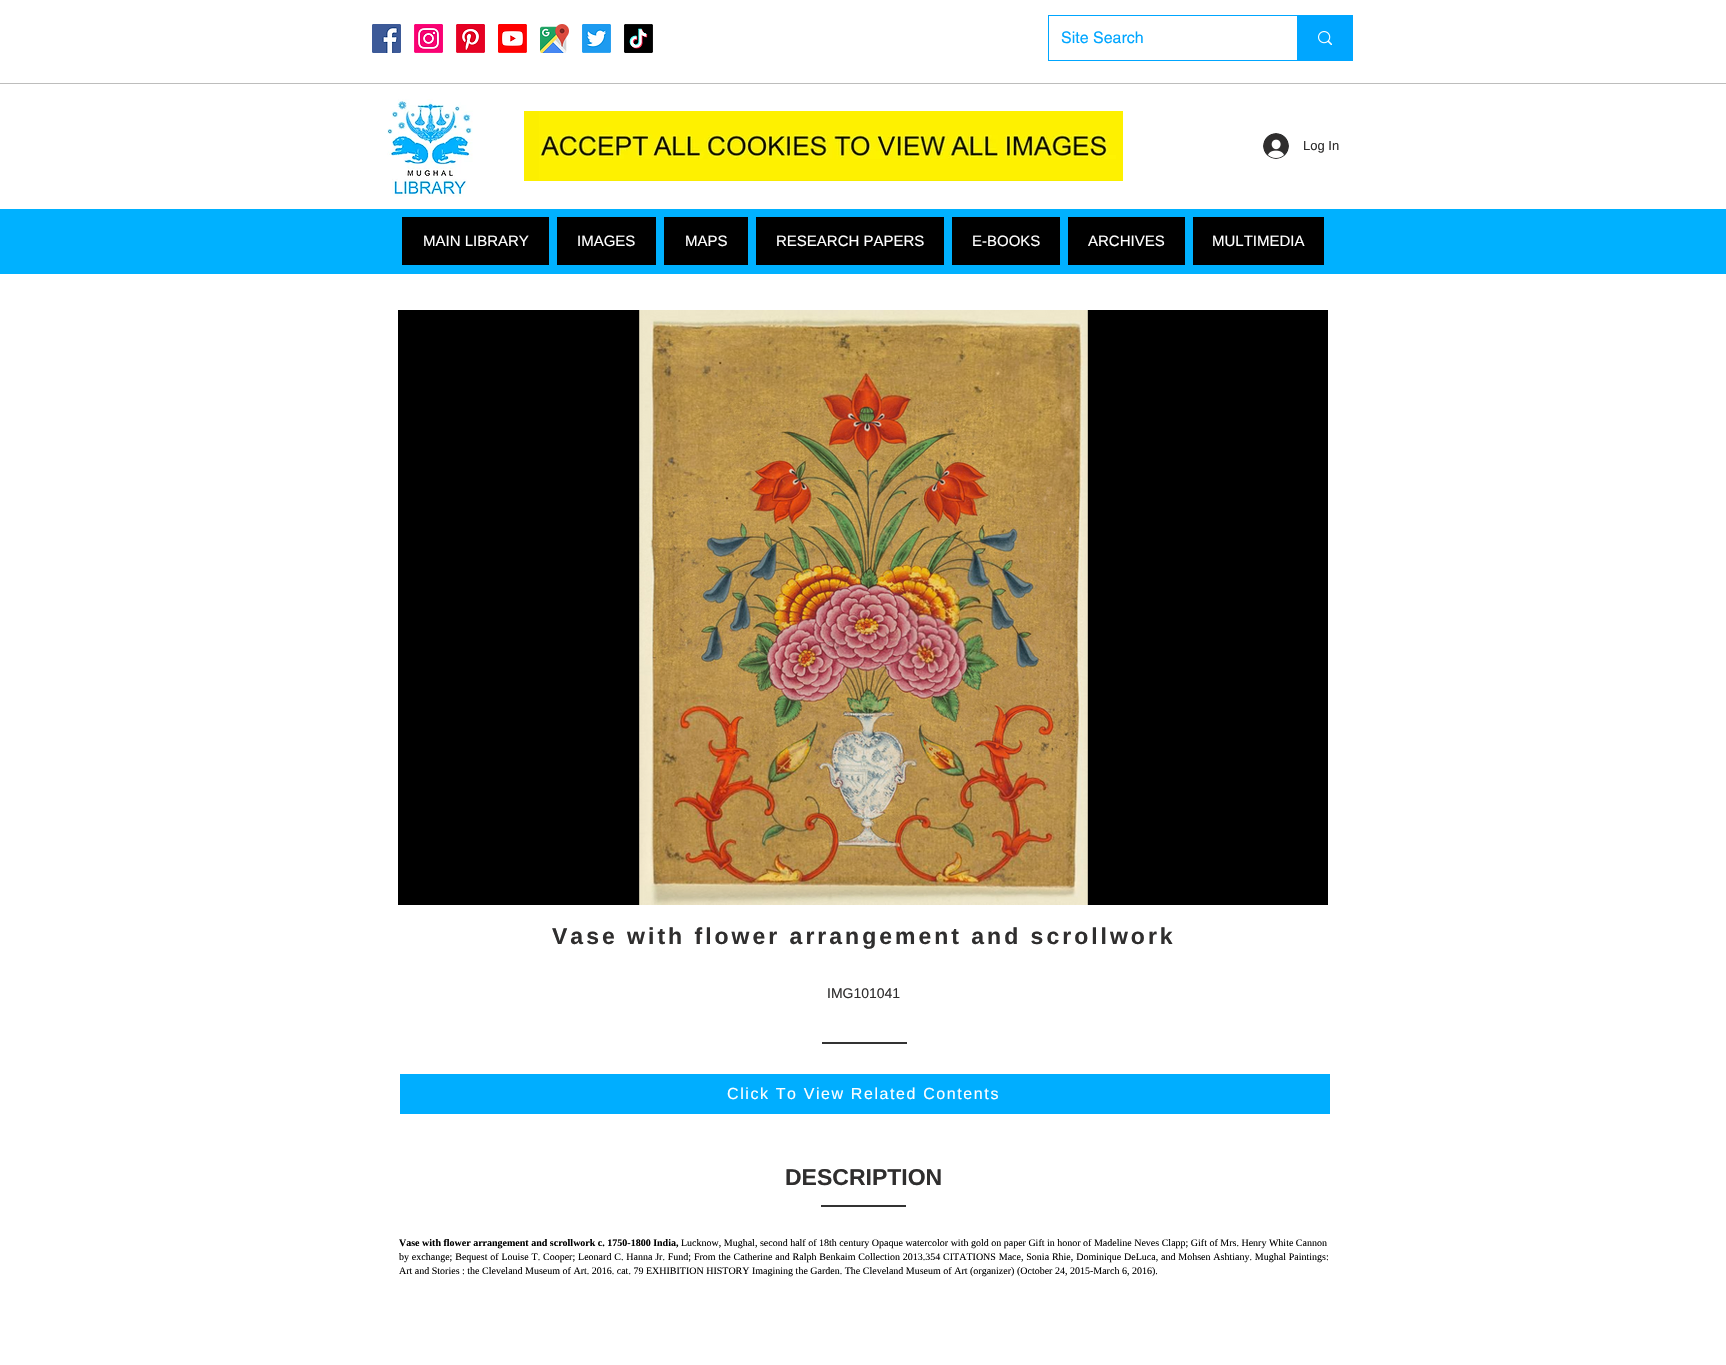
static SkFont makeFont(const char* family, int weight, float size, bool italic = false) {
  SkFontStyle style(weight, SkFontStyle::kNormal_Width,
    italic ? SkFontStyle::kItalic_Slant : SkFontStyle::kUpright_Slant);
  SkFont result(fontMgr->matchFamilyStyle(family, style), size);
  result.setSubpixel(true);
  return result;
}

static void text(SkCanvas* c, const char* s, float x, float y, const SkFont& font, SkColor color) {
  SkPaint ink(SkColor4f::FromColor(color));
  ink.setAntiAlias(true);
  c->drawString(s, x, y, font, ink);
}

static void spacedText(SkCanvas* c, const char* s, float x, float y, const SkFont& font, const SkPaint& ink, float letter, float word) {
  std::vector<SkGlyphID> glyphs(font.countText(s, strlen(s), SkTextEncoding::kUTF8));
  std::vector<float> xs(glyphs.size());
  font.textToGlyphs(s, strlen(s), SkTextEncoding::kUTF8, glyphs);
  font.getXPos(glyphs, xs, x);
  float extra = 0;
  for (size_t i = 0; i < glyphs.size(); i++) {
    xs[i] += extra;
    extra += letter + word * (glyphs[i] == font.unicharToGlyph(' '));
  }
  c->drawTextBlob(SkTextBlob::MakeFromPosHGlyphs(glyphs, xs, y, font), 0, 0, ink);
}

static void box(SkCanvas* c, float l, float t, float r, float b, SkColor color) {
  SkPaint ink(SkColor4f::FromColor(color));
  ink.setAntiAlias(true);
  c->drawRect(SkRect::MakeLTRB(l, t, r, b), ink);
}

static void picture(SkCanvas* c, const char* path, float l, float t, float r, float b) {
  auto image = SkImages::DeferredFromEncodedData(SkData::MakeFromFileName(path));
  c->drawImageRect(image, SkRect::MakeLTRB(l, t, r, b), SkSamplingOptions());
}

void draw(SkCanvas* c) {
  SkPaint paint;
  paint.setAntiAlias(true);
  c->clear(0xffffffff);
  picture(c, "img_01.png", 372, 24, 401, 53);
  picture(c, "img_02.png", 414, 24, 443, 53);
  picture(c, "img_03.png", 456, 24, 485, 53);
  picture(c, "img_04.png", 498, 24, 527, 53);
  picture(c, "img_05.png", 540, 24, 569, 53);
  picture(c, "img_06.png", 582, 24, 611, 53);
  picture(c, "img_07.png", 624, 24, 653, 53);
  paint.setStyle(SkPaint::kStroke_Style);
  paint.setStrokeWidth(1);
  paint.setColor(0xff00a6ff);
  c->drawRect(SkRect::MakeLTRB(1048.5f, 15.5f, 1352.5f, 60.5f), paint);
  SkFont face1 = makeFont("helvetica", 400, 16);
  text(c, "Site Search", 1061, 43, face1, 0xff00a6ff);
  box(c, 1297, 16, 1352, 60, 0xff00a6ff);
  picture(c, "img_08.png", 1318, 31, 1332, 45);
  box(c, 0, 83, 1726, 84, 0xffbdbdbc);
  picture(c, "img_09.png", 387, 99, 473, 197);
  picture(c, "img_10.png", 524, 111, 1123, 181);
  picture(c, "img_11.png", 539, 111, 1123, 180);
  picture(c, "img_12.png", 1263, 133, 1289, 159);
  SkFont face2 = makeFont("Liberation Sans", 400, 13);
  text(c, "Log In", 1303, 150, face2, 0xff2f2e2e);
  box(c, 0, 209, 1726, 274, 0xff00b1ff);
  box(c, 402, 217, 549, 265, 0xff000000);
  SkFont face3 = makeFont("Liberation Sans", 400, 15);
  text(c, "MAIN LIBRARY", 423, 246, face3, 0xffffffff);
  box(c, 557, 217, 656, 265, 0xff000000);
  text(c, "IMAGES", 577, 246, face3, 0xffffffff);
  box(c, 664, 217, 748, 265, 0xff000000);
  text(c, "MAPS", 685, 246, face3, 0xffffffff);
  box(c, 756, 217, 944, 265, 0xff000000);
  text(c, "RESEARCH PAPERS", 776, 246, face3, 0xffffffff);
  box(c, 952, 217, 1060, 265, 0xff000000);
  text(c, "E-BOOKS", 972, 246, face3, 0xffffffff);
  box(c, 1068, 217, 1185, 265, 0xff000000);
  text(c, "ARCHIVES", 1088, 246, face3, 0xffffffff);
  box(c, 1193, 217, 1324, 265, 0xff000000);
  text(c, "MULTIMEDIA", 1212, 246, face3, 0xffffffff);
  box(c, 398, 310, 1328, 905, 0xff000000);
  picture(c, "img_13.png", 639, 310, 1088, 905);
  SkFont face4 = makeFont("Liberation Sans", 700, 23);
  paint.setStyle(SkPaint::kFill_Style);
  paint.setColor(0xff2f2e2e);
  spacedText(c, "Vase with flower arrangement and scrollwork", 552, 944, face4, paint, 3, 0);
  SkFont face5 = makeFont("Liberation Sans", 400, 14);
  text(c, "IMG101041", 827, 998, face5, 0xff2f2e2e);
  box(c, 822, 1042, 907, 1044, 0xff333333);
  box(c, 400, 1074, 1330, 1114, 0xff00aeff);
  SkFont face6 = makeFont("Liberation Sans", 400, 16);
  paint.setColor(0xffffffff);
  spacedText(c, "Click To View Related Contents", 727, 1099, face6, paint, 1.6f, 0);
  text(c, "DESCRIPTION", 785, 1185, face4, 0xff2f2e2e);
  box(c, 821, 1205, 906, 1207, 0xff333333);
  SkFont face7 = makeFont("Liberation Serif", 700, 10);
  text(c, "Vase with flower arrangement and scrollwork c. 1750-1800 India,", 399, 1246, face7, 0xff000000);
  SkFont face8 = makeFont("Liberation Serif", 400, 10);
  text(c, "Lucknow, Mughal, second half of 18th century Opaque watercolor with gold on paper Gift in honor of Madeline Neves Clapp; Gift of Mrs. Henry White Cannon", 681, 1246, face8, 0xff000000);
  paint.setColor(0xff000000);
  spacedText(c, "by exchange; Bequest of Louise T. Cooper; Leonard C. Hanna Jr. Fund; From the Catherine and Ralph Benkaim Collection 2013.354 CITATIONS Mace, Sonia Rhie, Dominique DeLuca, and Mohsen Ashtiany. Mughal Paintings:", 399, 1260, face8, paint, 0, 0.35f);
  text(c, "Art and Stories : the Cleveland Museum of Art. 2016. cat. 79 EXHIBITION HISTORY Imagining the Garden. The Cleveland Museum of Art (organizer) (October 24, 2015-March 6, 2016).", 399, 1274, face8, 0xff000000);
}
